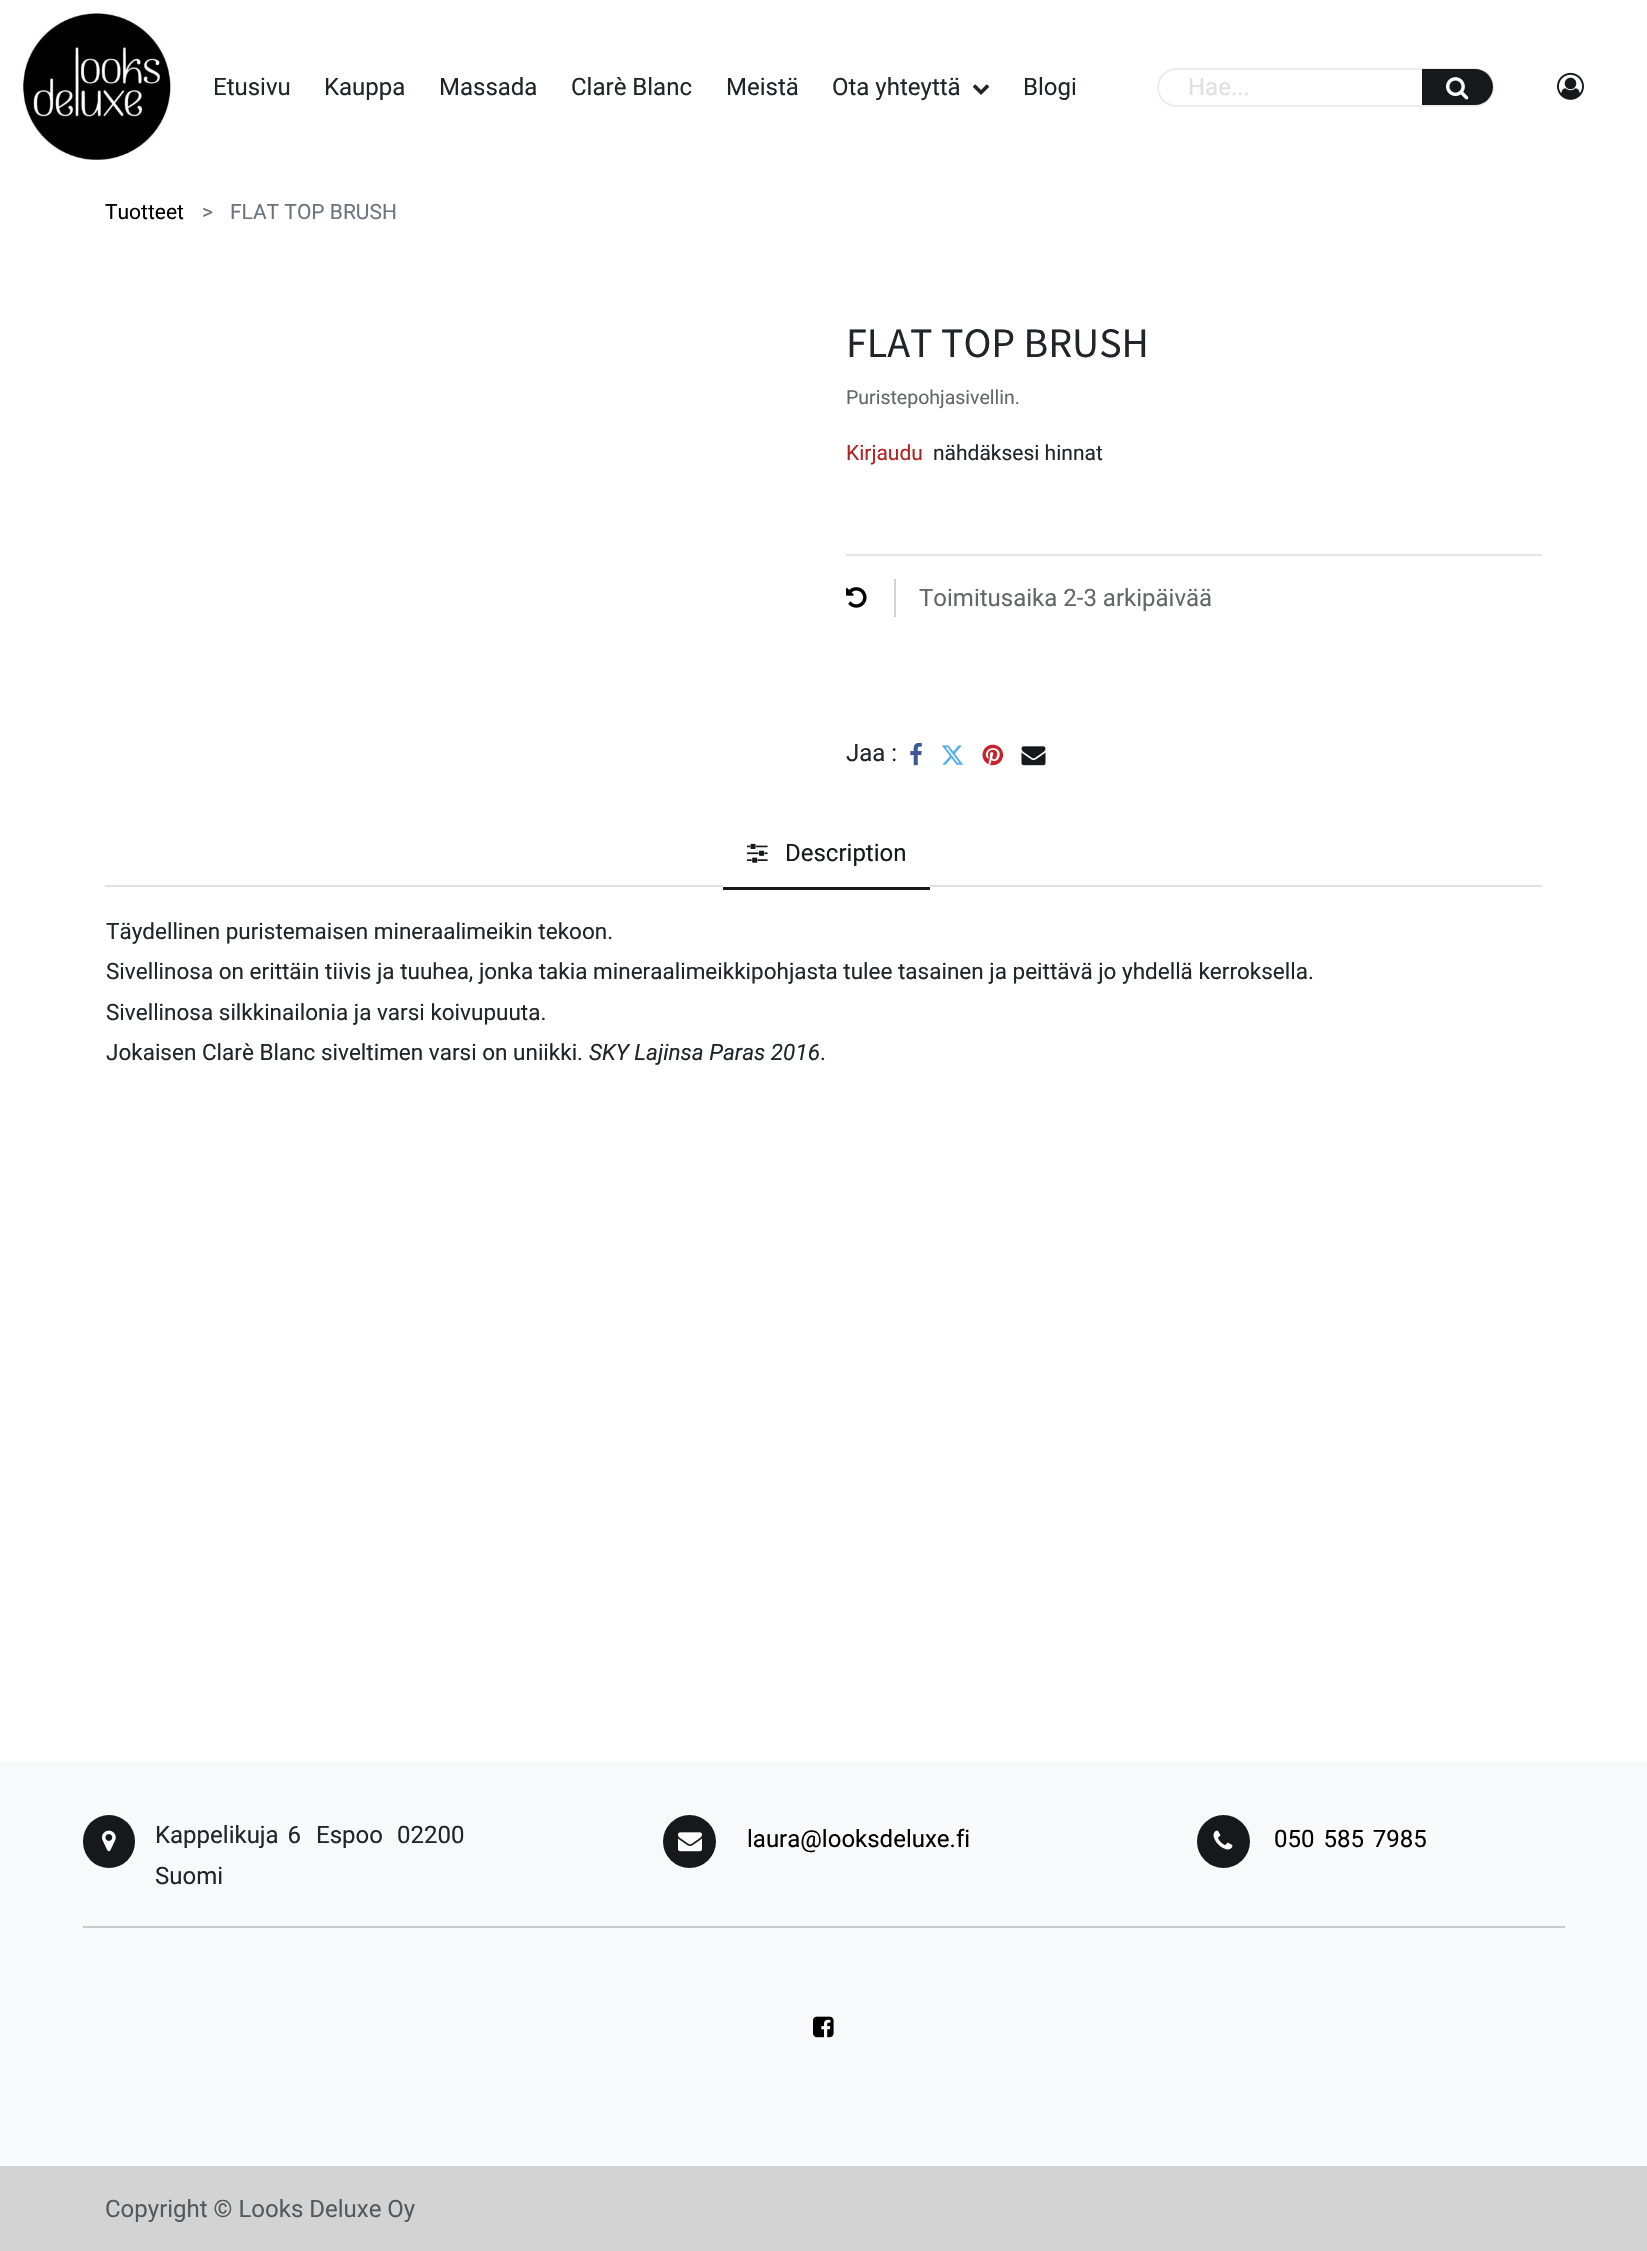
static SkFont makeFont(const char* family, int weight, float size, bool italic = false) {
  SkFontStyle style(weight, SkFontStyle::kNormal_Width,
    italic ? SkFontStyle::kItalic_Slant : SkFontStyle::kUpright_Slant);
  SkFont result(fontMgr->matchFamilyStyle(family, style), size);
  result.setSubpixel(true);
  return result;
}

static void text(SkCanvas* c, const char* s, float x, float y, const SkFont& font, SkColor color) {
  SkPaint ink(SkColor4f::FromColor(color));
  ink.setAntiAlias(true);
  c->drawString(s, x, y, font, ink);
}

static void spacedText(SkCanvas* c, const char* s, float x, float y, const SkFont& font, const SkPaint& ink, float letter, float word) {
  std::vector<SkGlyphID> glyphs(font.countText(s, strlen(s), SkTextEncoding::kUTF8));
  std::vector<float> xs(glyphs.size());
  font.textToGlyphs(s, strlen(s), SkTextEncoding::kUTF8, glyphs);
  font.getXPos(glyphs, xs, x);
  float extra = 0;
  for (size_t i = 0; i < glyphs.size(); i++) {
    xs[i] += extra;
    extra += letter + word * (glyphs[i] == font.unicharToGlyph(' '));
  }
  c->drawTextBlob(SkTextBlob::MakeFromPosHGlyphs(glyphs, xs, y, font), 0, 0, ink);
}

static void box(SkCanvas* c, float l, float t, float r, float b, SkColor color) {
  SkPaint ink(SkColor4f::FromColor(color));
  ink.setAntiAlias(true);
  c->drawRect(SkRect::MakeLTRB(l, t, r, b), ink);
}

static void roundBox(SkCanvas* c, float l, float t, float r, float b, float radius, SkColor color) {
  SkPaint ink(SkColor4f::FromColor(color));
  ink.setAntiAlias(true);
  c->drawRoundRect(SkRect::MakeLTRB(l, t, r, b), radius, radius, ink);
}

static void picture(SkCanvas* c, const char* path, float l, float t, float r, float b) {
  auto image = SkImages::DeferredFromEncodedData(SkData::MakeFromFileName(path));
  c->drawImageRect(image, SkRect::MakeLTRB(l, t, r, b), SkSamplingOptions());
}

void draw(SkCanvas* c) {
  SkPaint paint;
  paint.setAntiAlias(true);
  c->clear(0xffffffff);
  picture(c, "img_01.png", 22, 13, 171, 161);
  SkFont face1 = makeFont("Roboto", 400, 24);
  text(c, "Etusivu", 213, 95, face1, 0xff212529);
  text(c, "Kauppa", 324, 95, face1, 0xff212529);
  text(c, "Massada", 439, 95, face1, 0xff212529);
  text(c, "Clarè Blanc", 571, 95, face1, 0xff212529);
  text(c, "Meistä", 726, 95, face1, 0xff212529);
  text(c, "Ota yhteyttä", 832, 95, face1, 0xff212529);
  picture(c, "img_02.png", 972, 84, 990, 95);
  text(c, "Blogi", 1023, 95, face1, 0xff212529);
  paint.setStyle(SkPaint::kStroke_Style);
  paint.setStrokeWidth(2);
  paint.setColor(0xffededed);
  c->drawRoundRect(SkRect::MakeLTRB(1158, 69, 1493, 106), 18.5f, 18.5f, paint);
  text(c, "Hae...", 1188, 95, face1, 0xffe0e0e0);
  paint.setStyle(SkPaint::kFill_Style);
  paint.setColor(0xff16181b);
  c->drawPath(SkPathBuilder().moveTo(1422, 69).lineTo(1475, 69).cubicTo(1485, 69, 1493, 77, 1493, 87).cubicTo(1493, 97, 1485, 105, 1475, 105).lineTo(1422, 105).close().detach(), paint);
  picture(c, "img_03.png", 1446, 77, 1469, 100);
  picture(c, "img_04.png", 1557, 72, 1584, 100);
  SkFont face2 = makeFont("Roboto", 400, 21);
  text(c, "Tuotteet", 105, 219, face2, 0xff000000);
  text(c, ">", 202, 219, face2, 0xff6c757d);
  text(c, "FLAT TOP BRUSH", 230, 219, face2, 0xff6c757d);
  SkFont face3 = makeFont("Source Sans Pro", 400, 42);
  text(c, "FLAT TOP BRUSH", 846, 357, face3, 0xff212529);
  SkFont face4 = makeFont("Roboto", 400, 19.5f);
  text(c, "Puristepohjasivellin.", 846, 404, face4, 0xff646669);
  text(c, "Kirjaudu", 846, 460, face2, 0xffb22222);
  text(c, "nähdäksesi hinnat", 933, 460, face2, 0xff212529);
  box(c, 846, 554, 1542, 556, 0xffe6e6e6);
  box(c, 894, 579, 896, 617, 0xffd3d3d3);
  picture(c, "img_05.png", 846, 587, 867, 608);
  text(c, "Toimitusaika 2-3 arkipäivää", 919, 606, face1, 0xff646669);
  text(c, "Jaa :", 846, 761, face1, 0xff212529);
  picture(c, "img_06.png", 910, 742, 922, 766);
  picture(c, "img_07.png", 941, 745, 964, 765);
  picture(c, "img_08.png", 982, 744, 1004, 766);
  picture(c, "img_09.png", 1021, 746, 1046, 766);
  box(c, 105, 885, 1542, 887, 0xffdee2e6);
  box(c, 723, 885, 930, 887, 0xffffffff);
  box(c, 723, 887, 930, 890, 0xff16181b);
  picture(c, "img_10.png", 747, 843, 768, 863);
  text(c, "Description", 785, 861, face1, 0xff16181b);
  SkFont face5 = makeFont("Roboto", 400, 22.5f);
  text(c, "Täydellinen puristemaisen mineraalimeikin tekoon.", 106, 939, face5, 0xff212529);
  text(c, "Sivellinosa on erittäin tiivis ja tuuhea, jonka takia mineraalimeikkipohjasta tulee tasainen ja peittävä jo yhdellä kerroksella.", 106, 979, face5, 0xff212529);
  text(c, "Sivellinosa silkkinailonia ja varsi koivupuuta.", 106, 1020, face5, 0xff212529);
  text(c, "Jokaisen Clarè Blanc siveltimen varsi on uniikki.", 106, 1060, face5, 0xff212529);
  SkFont face6 = makeFont("Roboto", 400, 22.5f, true);
  text(c, "SKY Lajinsa Paras 2016", 589, 1060, face6, 0xff212529);
  text(c, ".", 820, 1060, face5, 0xff212529);
  box(c, 0, 1761, 1647, 2166, 0xfff8f9fa);
  roundBox(c, 83, 1815, 135, 1868, 26, 0xff16181b);
  picture(c, "img_11.png", 102, 1830, 116, 1852);
  paint.setColor(0xff212529);
  spacedText(c, "Kappelikuja 6", 155, 1843, face1, paint, 0, 3);
  text(c, "Espoo", 316, 1843, face1, 0xff212529);
  text(c, "02200", 397, 1843, face1, 0xff212529);
  text(c, "Suomi", 155, 1884, face1, 0xff212529);
  paint.setColor(0xff16181b);
  c->drawCircle(689.5f, 1841.5f, 26.5f, paint);
  picture(c, "img_12.png", 678, 1832, 702, 1852);
  text(c, "laura@looksdeluxe.fi", 747, 1847, face1, 0xff000000);
  c->drawCircle(1223.5f, 1841.5f, 26.5f, paint);
  picture(c, "img_13.png", 1213, 1830, 1233, 1850);
  paint.setColor(0xff000000);
  spacedText(c, "050 585 7985", 1274, 1847, face1, paint, 0, 3);
  box(c, 83, 1926, 1565, 1928, 0xffcccccc);
  picture(c, "img_14.png", 813, 2016, 834, 2038);
  box(c, 0, 2166, 1647, 2251, 0xffd3d3d4);
  text(c, "Copyright © Looks Deluxe Oy", 105, 2217, face1, 0xff56595c);
}
